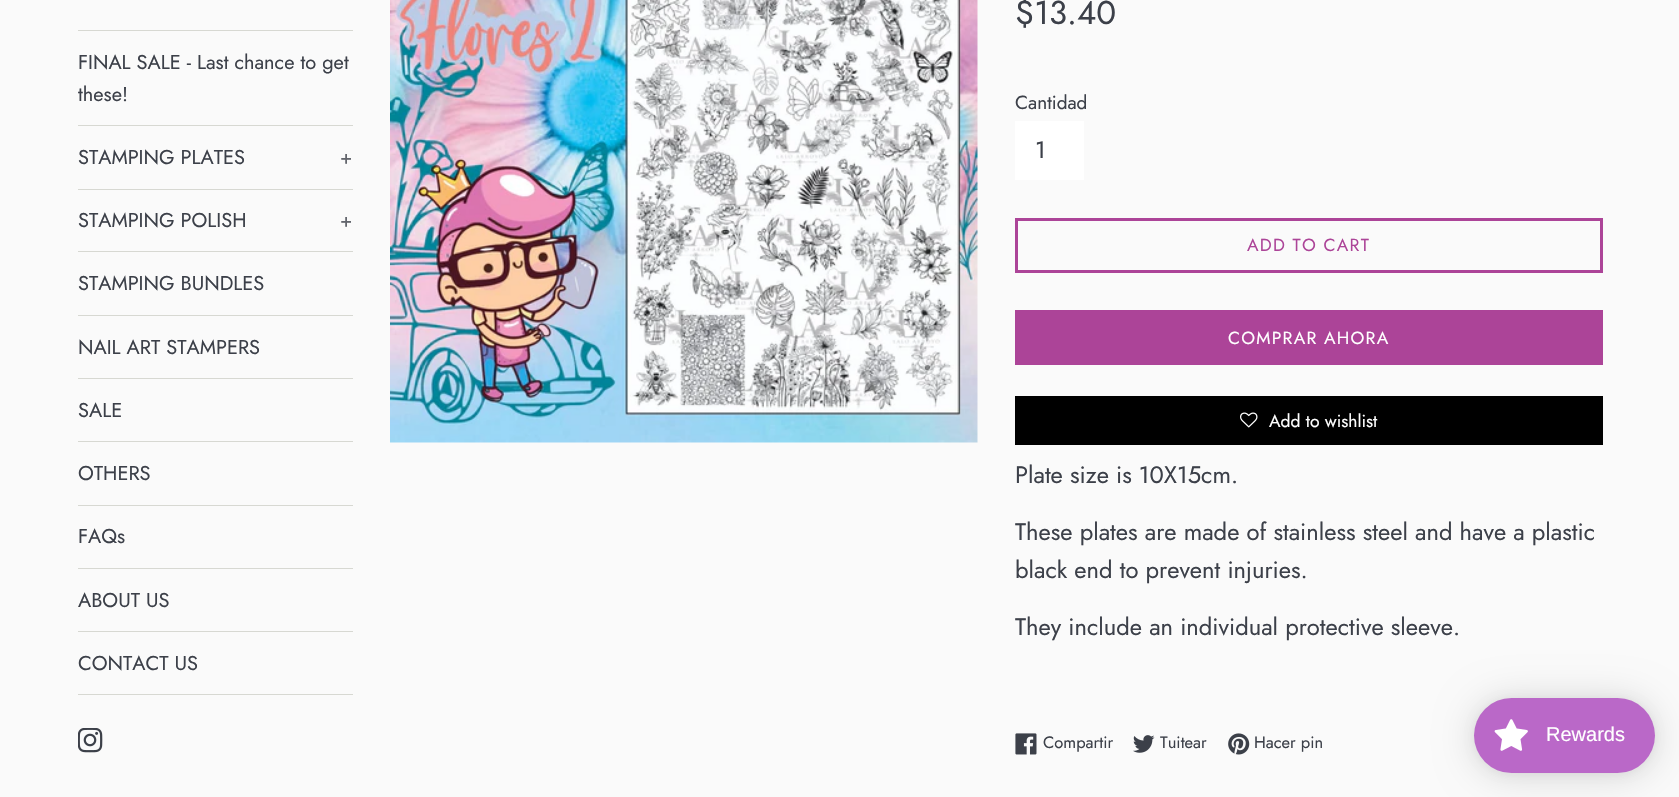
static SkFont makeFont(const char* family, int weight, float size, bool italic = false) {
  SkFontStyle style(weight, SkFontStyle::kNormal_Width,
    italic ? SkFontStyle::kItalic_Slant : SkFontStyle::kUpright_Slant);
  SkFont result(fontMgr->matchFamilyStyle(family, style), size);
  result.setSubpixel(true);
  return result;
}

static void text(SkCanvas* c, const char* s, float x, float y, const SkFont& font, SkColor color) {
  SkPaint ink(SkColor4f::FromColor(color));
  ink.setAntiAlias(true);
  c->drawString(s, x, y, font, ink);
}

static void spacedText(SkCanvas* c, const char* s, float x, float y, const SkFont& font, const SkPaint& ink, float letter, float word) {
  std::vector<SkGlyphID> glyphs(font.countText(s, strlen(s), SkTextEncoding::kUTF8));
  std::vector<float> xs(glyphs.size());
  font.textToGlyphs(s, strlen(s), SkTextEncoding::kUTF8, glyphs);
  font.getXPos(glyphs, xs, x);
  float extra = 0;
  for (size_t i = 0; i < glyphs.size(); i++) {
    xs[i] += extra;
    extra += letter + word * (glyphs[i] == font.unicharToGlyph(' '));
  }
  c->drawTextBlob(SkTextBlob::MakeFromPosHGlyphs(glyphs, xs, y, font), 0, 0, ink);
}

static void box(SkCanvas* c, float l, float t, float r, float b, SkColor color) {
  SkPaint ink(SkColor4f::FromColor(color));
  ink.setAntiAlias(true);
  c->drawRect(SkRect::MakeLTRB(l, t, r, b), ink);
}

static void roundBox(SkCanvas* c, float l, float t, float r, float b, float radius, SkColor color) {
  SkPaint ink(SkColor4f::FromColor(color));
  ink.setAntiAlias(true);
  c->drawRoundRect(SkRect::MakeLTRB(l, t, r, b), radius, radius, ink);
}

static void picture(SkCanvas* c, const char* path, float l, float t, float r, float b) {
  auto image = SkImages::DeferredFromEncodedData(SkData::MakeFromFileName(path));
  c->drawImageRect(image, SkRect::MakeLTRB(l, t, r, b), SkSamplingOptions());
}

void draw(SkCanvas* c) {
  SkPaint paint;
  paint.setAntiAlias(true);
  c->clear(0xfffafafa);
  box(c, 78, 30, 353, 31, 0xffd7d8d2);
  box(c, 78, 125, 353, 126, 0xffd7d8d2);
  SkFont face1 = makeFont("Jost", 400, 20);
  text(c, "FINAL SALE - Last chance to get", 78, 69, face1, 0xff3c4049);
  text(c, "these!", 78, 101, face1, 0xff3c4049);
  box(c, 78, 189, 353, 190, 0xffd7d8d2);
  text(c, "STAMPING PLATES", 78, 164, face1, 0xff3c4049);
  text(c, "+", 340, 164, face1, 0xff62656c);
  box(c, 78, 251, 353, 252, 0xffd7d8d2);
  text(c, "STAMPING POLISH", 78, 227, face1, 0xff3c4049);
  text(c, "+", 340, 227, face1, 0xff62656c);
  box(c, 78, 315, 353, 316, 0xffd7d8d2);
  text(c, "STAMPING BUNDLES", 78, 290, face1, 0xff3c4049);
  box(c, 78, 378, 353, 379, 0xffd7d8d2);
  text(c, "NAIL ART STAMPERS", 78, 354, face1, 0xff3c4049);
  box(c, 78, 441, 353, 442, 0xffd7d8d2);
  text(c, "SALE", 78, 417, face1, 0xff3c4049);
  box(c, 78, 505, 353, 506, 0xffd7d8d2);
  text(c, "OTHERS", 78, 480, face1, 0xff3c4049);
  box(c, 78, 568, 353, 569, 0xffd7d8d2);
  text(c, "FAQs", 78, 543, face1, 0xff3c4049);
  box(c, 78, 631, 353, 632, 0xffd7d8d2);
  text(c, "ABOUT US", 78, 607, face1, 0xff3c4049);
  box(c, 78, 694, 353, 695, 0xffd7d8d2);
  text(c, "CONTACT US", 78, 670, face1, 0xff3c4049);
  picture(c, "img_01.png", 78, 728, 103, 753);
  picture(c, "img_02.png", 390, 0, 978, 443);
  SkFont face2 = makeFont("Jost", 400, 33);
  text(c, "$13.40", 1015, 24, face2, 0xff3c4049);
  SkFont face3 = makeFont("Jost", 400, 19);
  text(c, "Cantidad", 1015, 109, face3, 0xff3c4049);
  box(c, 1015, 121, 1084, 180, 0xffffffff);
  SkFont face4 = makeFont("Jost", 400, 23.75f);
  text(c, "1", 1035, 158, face4, 0xff3c4049);
  paint.setStyle(SkPaint::kStroke_Style);
  paint.setStrokeWidth(3);
  paint.setColor(0xffac4498);
  c->drawRect(SkRect::MakeLTRB(1016.5f, 219.5f, 1601.5f, 271.5f), paint);
  SkFont face5 = makeFont("Jost", 400, 17.5f);
  paint.setStyle(SkPaint::kFill_Style);
  spacedText(c, "ADD TO CART", 1247, 251, face5, paint, 1.25f, 0);
  box(c, 1015, 310, 1603, 365, 0xffac4498);
  paint.setColor(0xffffffff);
  spacedText(c, "COMPRAR AHORA", 1228, 344, face5, paint, 1.25f, 0);
  box(c, 1015, 396, 1603, 445, 0xff000000);
  picture(c, "img_03.png", 1240, 412, 1258, 428);
  text(c, "Add to wishlist", 1269, 427, face5, 0xffffffff);
  text(c, "Plate size is 10X15cm.", 1015, 483, face4, 0xff3c4049);
  text(c, "These plates are made of stainless steel and have a plastic", 1015, 540, face4, 0xff3c4049);
  text(c, "black end to prevent injuries.", 1015, 578, face4, 0xff3c4049);
  text(c, "They include an individual protective sleeve.", 1015, 635, face4, 0xff3c4049);
  picture(c, "img_04.png", 1015, 733, 1037, 755);
  SkFont face6 = makeFont("Jost", 400, 16.5f);
  text(c, "Compartir", 1043, 748, face6, 0xff3c4049);
  picture(c, "img_05.png", 1133, 735, 1155, 753);
  text(c, "Tuitear", 1160, 748, face6, 0xff3c4049);
  picture(c, "img_06.png", 1228, 733, 1250, 755);
  text(c, "Hacer pin", 1254, 748, face6, 0xff3c4049);
  paint.setColor(0x26000000);
  paint.setMaskFilter(SkMaskFilter::MakeBlur(kNormal_SkBlurStyle, 19));
  c->drawRoundRect(SkRect::MakeLTRB(1474, 700, 1655, 775), 37.5f, 37.5f, paint);
  paint.setMaskFilter(nullptr);
  paint.setColor(0x0d000000);
  paint.setMaskFilter(SkMaskFilter::MakeBlur(kNormal_SkBlurStyle, 4));
  c->drawRoundRect(SkRect::MakeLTRB(1474, 699, 1655, 774), 37.5f, 37.5f, paint);
  paint.setMaskFilter(nullptr);
  roundBox(c, 1474, 698, 1655, 773, 37.5f, 0xffba68c8);
  picture(c, "img_07.png", 1494, 719, 1528, 751);
  SkFont face7 = makeFont("Liberation Sans", 400, 20);
  text(c, "Rewards", 1546, 741, face7, 0xffffffff);
}
